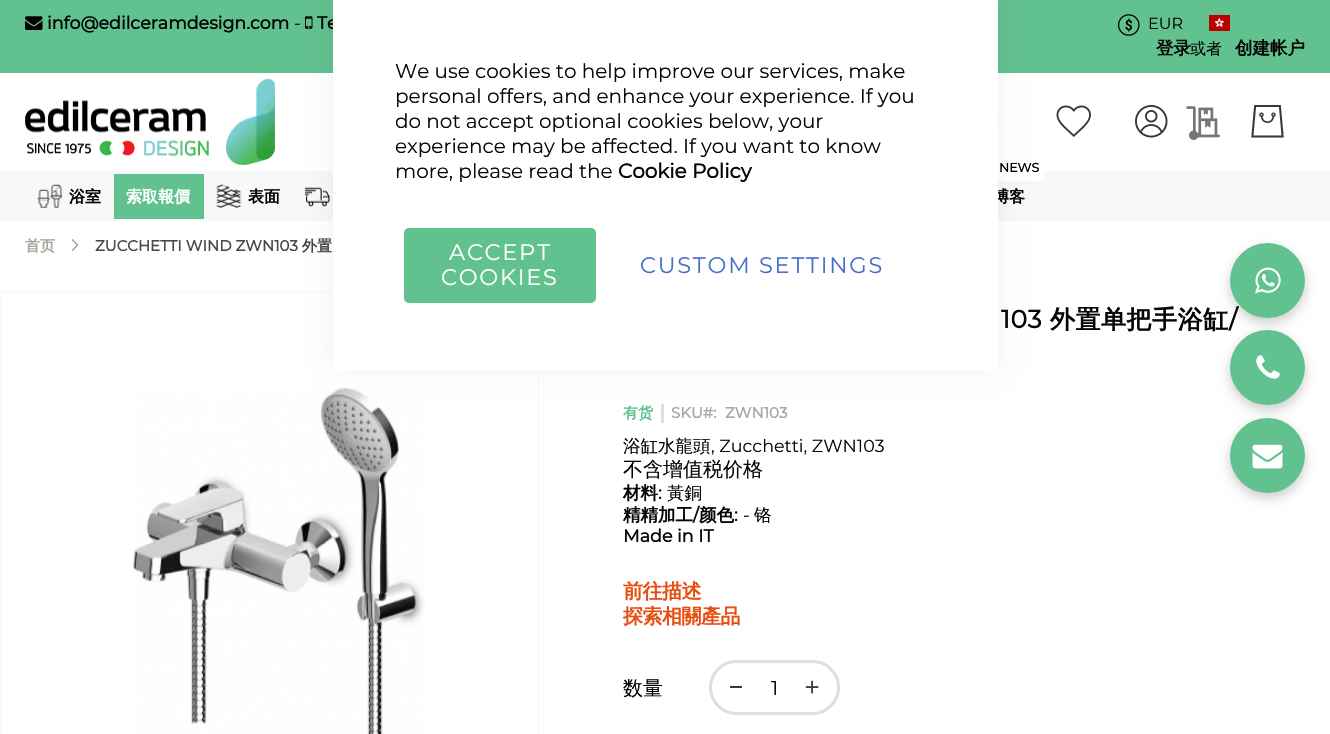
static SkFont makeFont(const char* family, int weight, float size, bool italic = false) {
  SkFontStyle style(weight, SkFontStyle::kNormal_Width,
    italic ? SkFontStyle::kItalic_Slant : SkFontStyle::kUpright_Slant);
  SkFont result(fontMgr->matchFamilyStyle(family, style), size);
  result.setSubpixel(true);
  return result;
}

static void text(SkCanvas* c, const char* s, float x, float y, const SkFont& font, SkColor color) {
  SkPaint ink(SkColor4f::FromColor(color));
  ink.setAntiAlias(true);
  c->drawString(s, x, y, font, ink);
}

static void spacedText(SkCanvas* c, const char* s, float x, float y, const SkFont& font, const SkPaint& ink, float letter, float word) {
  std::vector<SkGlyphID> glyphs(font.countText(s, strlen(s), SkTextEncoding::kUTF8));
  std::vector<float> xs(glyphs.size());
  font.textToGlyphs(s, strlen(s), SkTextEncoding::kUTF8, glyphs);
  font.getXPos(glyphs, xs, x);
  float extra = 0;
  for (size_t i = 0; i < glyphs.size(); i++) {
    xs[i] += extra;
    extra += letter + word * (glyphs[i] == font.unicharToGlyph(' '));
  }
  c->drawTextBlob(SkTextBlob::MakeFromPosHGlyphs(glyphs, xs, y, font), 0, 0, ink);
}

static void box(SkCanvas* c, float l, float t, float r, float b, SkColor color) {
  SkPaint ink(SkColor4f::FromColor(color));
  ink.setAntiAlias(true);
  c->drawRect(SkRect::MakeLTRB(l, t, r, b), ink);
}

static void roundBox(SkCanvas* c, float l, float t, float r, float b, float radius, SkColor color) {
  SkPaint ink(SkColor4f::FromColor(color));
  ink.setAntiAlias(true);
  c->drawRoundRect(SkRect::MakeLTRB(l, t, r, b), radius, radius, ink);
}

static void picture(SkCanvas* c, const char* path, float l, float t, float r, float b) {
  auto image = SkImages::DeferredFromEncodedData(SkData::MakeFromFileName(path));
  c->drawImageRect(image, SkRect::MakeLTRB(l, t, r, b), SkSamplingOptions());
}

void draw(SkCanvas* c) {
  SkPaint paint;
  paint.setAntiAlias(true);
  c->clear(0xffffffff);
  box(c, 0, 0, 1330, 73, 0xff61c18f);
  picture(c, "img_01.png", 25, 16, 43, 30);
  SkFont face1 = makeFont("Montserrat", 700, 17.5f);
  text(c, "info@edilceramdesign.com", 47, 29, face1, 0xff000000);
  SkFont face2 = makeFont("Montserrat", 100, 17.5f);
  text(c, "-", 294, 29, face2, 0xff070605);
  picture(c, "img_02.png", 305, 16, 313, 29);
  text(c, "Te", 317, 29, face1, 0xff000000);
  picture(c, "img_03.png", 1117, 14, 1140, 36);
  SkFont face3 = makeFont("Montserrat", 100, 16);
  text(c, "EUR", 1148, 29, face3, 0xff070605);
  picture(c, "img_04.png", 1209, 15, 1230, 31);
  SkFont face4 = makeFont("WenQuanYi Zen Hei", 700, 17.5f);
  text(c, "登录", 1156, 54, face4, 0xff070605);
  SkFont face5 = makeFont("WenQuanYi Zen Hei", 500, 16);
  text(c, "或者", 1190, 54, face5, 0xff070605);
  text(c, "创建帐户", 1235, 54, face4, 0xff070605);
  picture(c, "img_05.png", 25, 78, 275, 165);
  roundBox(c, 574, 96, 999, 146, 25, 0xfff7f7f7);
  picture(c, "img_06.png", 1056, 105, 1091, 137);
  picture(c, "img_07.png", 1135, 105, 1168, 138);
  picture(c, "img_08.png", 1186, 106, 1220, 140);
  picture(c, "img_09.png", 1251, 105, 1284, 138);
  box(c, 0, 171, 1330, 221, 0xfff8f8f8);
  picture(c, "img_10.png", 37, 184, 63, 208);
  SkFont face6 = makeFont("WenQuanYi Zen Hei", 700, 16);
  text(c, "浴室", 69, 202, face6, 0xff000000);
  box(c, 114, 174, 204, 219, 0xff61c18f);
  text(c, "索取報價", 126, 202, face6, 0xffffffff);
  picture(c, "img_11.png", 216, 184, 242, 208);
  text(c, "表面", 248, 202, face6, 0xff000000);
  picture(c, "img_12.png", 305, 187, 330, 207);
  roundBox(c, 993, 156, 1045, 181, 2.5f, 0xffffffff);
  SkFont face7 = makeFont("Montserrat", 700, 12.5f);
  text(c, "NEWS", 999, 172, face7, 0xff000000);
  text(c, "博客", 993, 202, face6, 0xff000000);
  SkFont face8 = makeFont("WenQuanYi Zen Hei", 700, 15);
  text(c, "首页", 25, 251, face8, 0xffa8a69f);
  picture(c, "img_13.png", 71, 239, 79, 251);
  SkFont face9 = makeFont("Montserrat", 700, 15);
  text(c, "ZUCCHETTI WIND ZWN103", 95, 251, face9, 0xff4a4948);
  text(c, "外置", 302, 251, face8, 0xff4a4948);
  paint.setColor(0x33000000);
  paint.setMaskFilter(SkMaskFilter::MakeBlur(kNormal_SkBlurStyle, 6));
  c->drawRoundRect(SkRect::MakeLTRB(1230, 248, 1305, 323), 37.5f, 37.5f, paint);
  paint.setMaskFilter(nullptr);
  SkFont face10 = makeFont("Montserrat", 700, 25);
  paint.setColor(0xff070605);
  spacedText(c, "/", 1229, 328, face10, paint, 0.5f, 0);
  paint.setColor(0xff61c18f);
  c->drawCircle(1267.5f, 280.5f, 37.5f, paint);
  picture(c, "img_14.png", 1255, 267, 1281, 294);
  paint.setColor(0x33000000);
  paint.setMaskFilter(SkMaskFilter::MakeBlur(kNormal_SkBlurStyle, 6));
  c->drawRoundRect(SkRect::MakeLTRB(1230, 335, 1305, 410), 37.5f, 37.5f, paint);
  paint.setMaskFilter(nullptr);
  paint.setColor(0xff61c18f);
  c->drawCircle(1267.5f, 367.5f, 37.5f, paint);
  picture(c, "img_15.png", 1256, 355, 1280, 379);
  paint.setColor(0x33000000);
  paint.setMaskFilter(SkMaskFilter::MakeBlur(kNormal_SkBlurStyle, 6));
  c->drawRoundRect(SkRect::MakeLTRB(1230, 423, 1305, 498), 37.5f, 37.5f, paint);
  paint.setMaskFilter(nullptr);
  paint.setColor(0xff61c18f);
  c->drawCircle(1267.5f, 455.5f, 37.5f, paint);
  picture(c, "img_16.png", 1252, 444, 1283, 469);
  paint.setStyle(SkPaint::kStroke_Style);
  paint.setStrokeWidth(1);
  paint.setColor(0xfff7f7f7);
  c->drawRect(SkRect::MakeLTRB(0.5f, 291.5f, 538.5f, 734.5f), paint);
  picture(c, "img_17.png", 133, 387, 425, 734);
  paint.setStyle(SkPaint::kFill_Style);
  paint.setColor(0xff070605);
  spacedText(c, "103", 1001, 328, face10, paint, 0.5f, 0);
  SkFont face11 = makeFont("WenQuanYi Zen Hei", 700, 25);
  spacedText(c, "外置单把手浴缸", 1050, 328, face11, paint, 0.5f, 0);
  text(c, "有货", 623, 418, face8, 0xff61c18f);
  box(c, 661, 404, 664, 423, 0xffdfdedd);
  text(c, "SKU#:", 671, 418, face9, 0xffa8a69f);
  text(c, "ZWN103", 725, 418, face9, 0xffa8a69f);
  SkFont face12 = makeFont("WenQuanYi Zen Hei", 500, 17.5f);
  text(c, "浴缸水龍頭", 623, 452, face12, 0xff070605);
  text(c, ", Zucchetti, ZWN103", 711, 452, face2, 0xff070605);
  SkFont face13 = makeFont("WenQuanYi Zen Hei", 500, 20);
  text(c, "不含增值税价格", 623, 476, face13, 0xff070605);
  text(c, "材料", 623, 499, face4, 0xff070605);
  text(c, ":", 658, 499, face1, 0xff070605);
  text(c, "黃銅", 667, 499, face12, 0xff070605);
  text(c, "精精加工", 623, 521, face4, 0xff070605);
  text(c, "/", 693, 521, face1, 0xff070605);
  text(c, "颜色", 699, 521, face4, 0xff070605);
  text(c, ":", 734, 521, face1, 0xff070605);
  text(c, "-", 743, 521, face2, 0xff070605);
  text(c, "铬", 754, 521, face12, 0xff070605);
  text(c, "Made in IT", 623, 542, face1, 0xff070605);
  SkFont face14 = makeFont("WenQuanYi Zen Hei", 700, 20);
  paint.setColor(0xffe94d10);
  spacedText(c, "前往描述", 623, 598, face14, paint, -0.5f, 0);
  spacedText(c, "探索相關產品", 623, 623, face14, paint, -0.5f, 0);
  text(c, "数量", 623, 695, face13, 0xff070605);
  paint.setStyle(SkPaint::kStroke_Style);
  paint.setStrokeWidth(3);
  paint.setColor(0xffdfdedd);
  c->drawRoundRect(SkRect::MakeLTRB(710.5f, 661.5f, 838.5f, 713.5f), 26, 26, paint);
  box(c, 730, 686, 742, 688, 0xff3d3731);
  SkFont face15 = makeFont("Montserrat", 100, 20);
  text(c, "1", 771, 695, face15, 0xff070605);
  picture(c, "img_18.png", 805, 680, 819, 694);
  paint.setStyle(SkPaint::kFill_Style);
  paint.setColor(0x0f000000);
  paint.setMaskFilter(SkMaskFilter::MakeBlur(kNormal_SkBlurStyle, 11));
  c->drawRect(SkRect::MakeLTRB(333, -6, 998, 369), paint);
  paint.setMaskFilter(nullptr);
  box(c, 333, 0, 998, 371, 0xffffffff);
  text(c, "We use cookies to help improve our services, make", 395, 78, face15, 0xff070605);
  text(c, "personal offers, and enhance your experience. If you", 395, 103, face15, 0xff070605);
  text(c, "do not accept optional cookies below, your", 395, 128, face15, 0xff070605);
  text(c, "experience may be affected. If you want to know", 395, 153, face15, 0xff070605);
  text(c, "more, please read the", 395, 178, face15, 0xff070605);
  SkFont face16 = makeFont("Montserrat", 700, 20);
  text(c, "Cookie Policy", 618, 178, face16, 0xff070605);
  roundBox(c, 404, 228, 596, 303, 5, 0xff61c18f);
  SkFont face17 = makeFont("Montserrat", 100, 22.5f);
  paint.setColor(0xffffffff);
  spacedText(c, "ACCEPT", 449, 260, face17, paint, 1.75f, 0);
  spacedText(c, "COOKIES", 441, 285, face17, paint, 1.75f, 0);
  paint.setColor(0xff4670c9);
  spacedText(c, "CUSTOM SETTINGS", 640, 273, face17, paint, 1.75f, 0);
}
